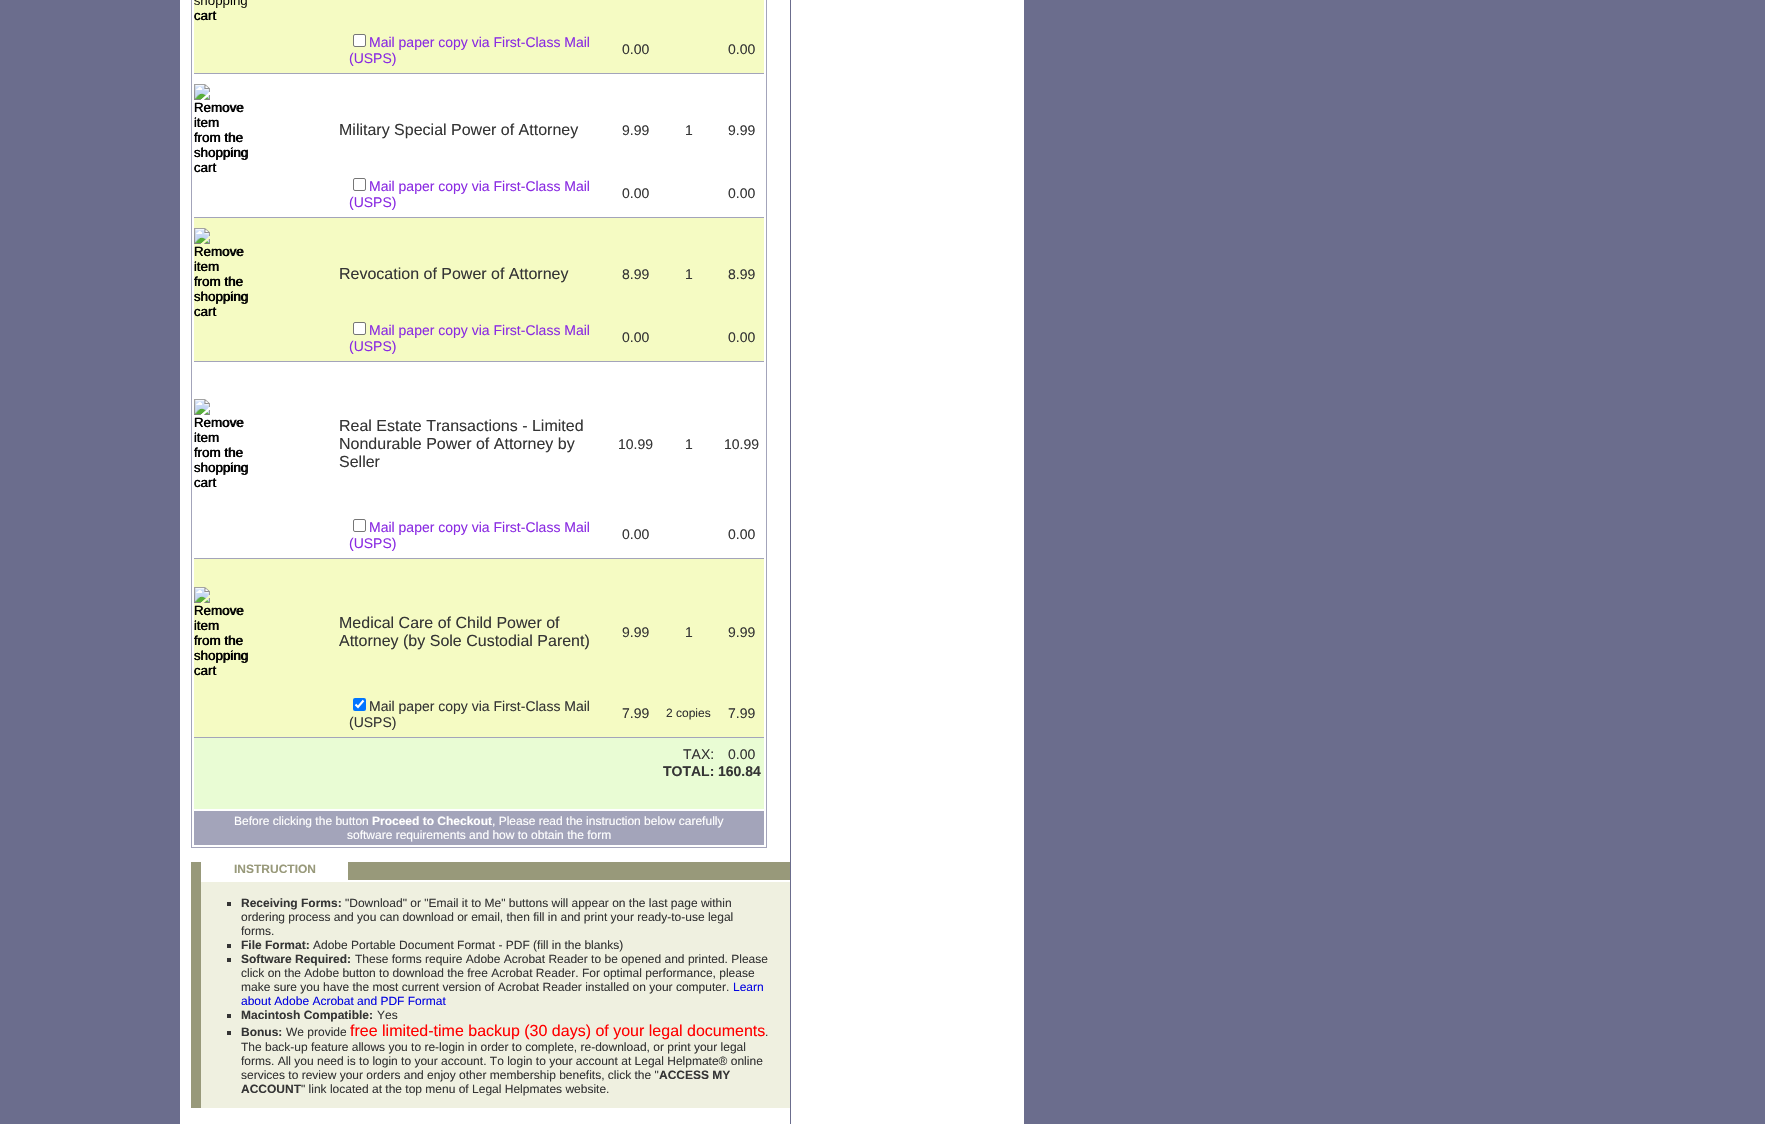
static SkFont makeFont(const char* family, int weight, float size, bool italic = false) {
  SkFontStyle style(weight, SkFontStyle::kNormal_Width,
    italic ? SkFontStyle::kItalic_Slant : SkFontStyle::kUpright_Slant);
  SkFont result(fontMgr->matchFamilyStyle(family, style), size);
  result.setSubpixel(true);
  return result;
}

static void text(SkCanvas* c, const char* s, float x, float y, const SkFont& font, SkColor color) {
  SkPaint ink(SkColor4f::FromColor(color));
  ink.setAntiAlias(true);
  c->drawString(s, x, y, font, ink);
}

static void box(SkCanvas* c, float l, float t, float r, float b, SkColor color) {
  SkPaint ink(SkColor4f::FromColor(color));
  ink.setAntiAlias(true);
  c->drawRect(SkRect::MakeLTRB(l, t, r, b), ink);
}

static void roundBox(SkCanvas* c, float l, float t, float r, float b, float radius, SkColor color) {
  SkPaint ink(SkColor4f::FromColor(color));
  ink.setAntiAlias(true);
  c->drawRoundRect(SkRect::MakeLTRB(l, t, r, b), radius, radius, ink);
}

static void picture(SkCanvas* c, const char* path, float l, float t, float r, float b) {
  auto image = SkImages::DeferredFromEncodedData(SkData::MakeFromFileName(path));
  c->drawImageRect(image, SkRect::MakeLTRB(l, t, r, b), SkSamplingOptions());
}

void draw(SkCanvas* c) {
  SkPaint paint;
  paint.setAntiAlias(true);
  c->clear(0xff6b6d8d);
  box(c, 180, 0, 790, 1124, 0xffffffff);
  box(c, 191, 0, 767, 848, 0xffa3a4ba);
  box(c, 192, 0, 766, 847, 0xffffffff);
  box(c, 194, 0, 764, 73, 0xfff5fbc3);
  picture(c, "img_01.png", 194, 0, 247, 20);
  SkFont face1 = makeFont("Liberation Sans", 400, 13.5f);
  text(c, "cart", 194, 20, face1, 0xff000000);
  paint.setColor(0xffffffff);
  c->drawRoundRect(SkRect::MakeLTRB(353.5f, 34.5f, 365.5f, 46.5f), 1.5f, 1.5f, paint);
  paint.setStyle(SkPaint::kStroke_Style);
  paint.setStrokeWidth(1);
  paint.setColor(0xff767676);
  c->drawRoundRect(SkRect::MakeLTRB(353.5f, 34.5f, 365.5f, 46.5f), 1.5f, 1.5f, paint);
  SkFont face2 = makeFont("Liberation Sans", 400, 14);
  text(c, "Mail paper copy via First-Class Mail", 369, 47, face2, 0xff8a2be2);
  text(c, "(USPS)", 349, 63, face2, 0xff8a2be2);
  text(c, "0.00", 622, 54, face2, 0xff353535);
  text(c, "0.00", 728, 54, face2, 0xff353535);
  box(c, 194, 73, 764, 74, 0xffa3a4ba);
  picture(c, "img_02.png", 194, 84, 247, 172);
  text(c, "Remove", 194, 112, face1, 0xff000000);
  text(c, "item", 194, 127, face1, 0xff000000);
  text(c, "from the", 194, 142, face1, 0xff000000);
  text(c, "shopping", 194, 157, face1, 0xff000000);
  text(c, "cart", 194, 172, face1, 0xff000000);
  SkFont face3 = makeFont("Liberation Sans", 400, 16);
  text(c, "Military Special Power of Attorney", 339, 135, face3, 0xff353535);
  text(c, "9.99", 622, 135, face2, 0xff353535);
  text(c, "1", 685, 135, face2, 0xff353535);
  text(c, "9.99", 728, 135, face2, 0xff353535);
  c->drawRoundRect(SkRect::MakeLTRB(353.5f, 178.5f, 365.5f, 190.5f), 1.5f, 1.5f, paint);
  text(c, "Mail paper copy via First-Class Mail", 369, 191, face2, 0xff8a2be2);
  text(c, "(USPS)", 349, 207, face2, 0xff8a2be2);
  text(c, "0.00", 622, 198, face2, 0xff353535);
  text(c, "0.00", 728, 198, face2, 0xff353535);
  box(c, 194, 217, 764, 218, 0xffa3a4ba);
  box(c, 194, 218, 764, 361, 0xfff5fbc3);
  picture(c, "img_03.png", 194, 228, 247, 316);
  text(c, "Remove", 194, 256, face1, 0xff000000);
  text(c, "item", 194, 271, face1, 0xff000000);
  text(c, "from the", 194, 286, face1, 0xff000000);
  text(c, "shopping", 194, 301, face1, 0xff000000);
  text(c, "cart", 194, 316, face1, 0xff000000);
  text(c, "Revocation of Power of Attorney", 339, 279, face3, 0xff353535);
  text(c, "8.99", 622, 279, face2, 0xff353535);
  text(c, "1", 685, 279, face2, 0xff353535);
  text(c, "8.99", 728, 279, face2, 0xff353535);
  paint.setStyle(SkPaint::kFill_Style);
  paint.setColor(0xffffffff);
  c->drawRoundRect(SkRect::MakeLTRB(353.5f, 322.5f, 365.5f, 334.5f), 1.5f, 1.5f, paint);
  paint.setStyle(SkPaint::kStroke_Style);
  paint.setColor(0xff767676);
  c->drawRoundRect(SkRect::MakeLTRB(353.5f, 322.5f, 365.5f, 334.5f), 1.5f, 1.5f, paint);
  text(c, "Mail paper copy via First-Class Mail", 369, 335, face2, 0xff8a2be2);
  text(c, "(USPS)", 349, 351, face2, 0xff8a2be2);
  text(c, "0.00", 622, 342, face2, 0xff353535);
  text(c, "0.00", 728, 342, face2, 0xff353535);
  box(c, 194, 361, 764, 362, 0xffa3a4ba);
  picture(c, "img_02.png", 194, 399, 247, 487);
  text(c, "Remove", 194, 427, face1, 0xff000000);
  text(c, "item", 194, 442, face1, 0xff000000);
  text(c, "from the", 194, 457, face1, 0xff000000);
  text(c, "shopping", 194, 472, face1, 0xff000000);
  text(c, "cart", 194, 487, face1, 0xff000000);
  text(c, "Real Estate Transactions - Limited", 339, 431, face3, 0xff353535);
  text(c, "Nondurable Power of Attorney by", 339, 449, face3, 0xff353535);
  text(c, "Seller", 339, 467, face3, 0xff353535);
  text(c, "10.99", 618, 449, face2, 0xff353535);
  text(c, "1", 685, 449, face2, 0xff353535);
  text(c, "10.99", 724, 449, face2, 0xff353535);
  c->drawRoundRect(SkRect::MakeLTRB(353.5f, 519.5f, 365.5f, 531.5f), 1.5f, 1.5f, paint);
  text(c, "Mail paper copy via First-Class Mail", 369, 532, face2, 0xff8a2be2);
  text(c, "(USPS)", 349, 548, face2, 0xff8a2be2);
  text(c, "0.00", 622, 539, face2, 0xff353535);
  text(c, "0.00", 728, 539, face2, 0xff353535);
  box(c, 194, 558, 764, 559, 0xffa3a4ba);
  box(c, 194, 559, 764, 737, 0xfff5fbc3);
  picture(c, "img_03.png", 194, 587, 247, 675);
  text(c, "Remove", 194, 615, face1, 0xff000000);
  text(c, "item", 194, 630, face1, 0xff000000);
  text(c, "from the", 194, 645, face1, 0xff000000);
  text(c, "shopping", 194, 660, face1, 0xff000000);
  text(c, "cart", 194, 675, face1, 0xff000000);
  text(c, "Medical Care of Child Power of", 339, 628, face3, 0xff353535);
  text(c, "Attorney (by Sole Custodial Parent)", 339, 646, face3, 0xff353535);
  text(c, "9.99", 622, 637, face2, 0xff353535);
  text(c, "1", 685, 637, face2, 0xff353535);
  text(c, "9.99", 728, 637, face2, 0xff353535);
  roundBox(c, 353, 698, 366, 711, 2, 0xff0075ff);
  paint.setStrokeWidth(2.1f);
  paint.setColor(0xffffffff);
  c->drawPath(SkPathBuilder().moveTo(355.5f, 704.5f).lineTo(358, 707).lineTo(363.5f, 700.5f).detach(), paint);
  text(c, "Mail paper copy via First-Class Mail", 369, 711, face2, 0xff353535);
  text(c, "(USPS)", 349, 727, face2, 0xff353535);
  text(c, "7.99", 622, 718, face2, 0xff353535);
  SkFont face4 = makeFont("Liberation Sans", 400, 12);
  text(c, "2 copies", 666, 717, face4, 0xff353535);
  text(c, "7.99", 728, 718, face2, 0xff353535);
  box(c, 194, 737, 764, 738, 0xffa3a4ba);
  box(c, 194, 738, 764, 809, 0xffe9fcd4);
  text(c, "TAX:", 683, 759, face2, 0xff353535);
  text(c, "0.00", 728, 759, face2, 0xff353535);
  SkFont face5 = makeFont("Liberation Sans", 700, 14);
  text(c, "TOTAL:", 663, 776, face5, 0xff353535);
  text(c, "160.84", 718, 776, face5, 0xff353535);
  box(c, 194, 811, 764, 845, 0xffa3a4ba);
  text(c, "Before clicking the button", 234, 825, face4, 0xffffffff);
  SkFont face6 = makeFont("Liberation Sans", 700, 12);
  text(c, "Proceed to Checkout", 372, 825, face6, 0xffffffff);
  text(c, ", Please read the instruction below carefully", 492, 825, face4, 0xffffffff);
  text(c, "software requirements and how to obtain the form", 347, 839, face4, 0xffffffff);
  box(c, 191, 862, 790, 880, 0xff98997a);
  box(c, 201, 862, 348, 880, 0xffffffff);
  text(c, "INSTRUCTION", 234, 873, face6, 0xff98997a);
  box(c, 191, 880, 201, 1108, 0xff98997a);
  box(c, 201, 882, 790, 1108, 0xffeff0e0);
  box(c, 227, 902, 231, 906, 0xff353535);
  text(c, "Receiving Forms:", 241, 907, face6, 0xff353535);
  text(c, "\"Download\" or \"Email it to Me\" buttons will appear on the last page within", 345, 907, face4, 0xff353535);
  text(c, "ordering process and you can download or email, then fill in and print your ready-to-use legal", 241, 921, face4, 0xff353535);
  text(c, "forms.", 241, 935, face4, 0xff353535);
  box(c, 227, 944, 231, 948, 0xff353535);
  text(c, "File Format:", 241, 949, face6, 0xff353535);
  text(c, "Adobe Portable Document Format - PDF (fill in the blanks)", 313, 949, face4, 0xff353535);
  box(c, 227, 958, 231, 962, 0xff353535);
  text(c, "Software Required:", 241, 963, face6, 0xff353535);
  text(c, "These forms require Adobe Acrobat Reader to be opened and printed. Please", 355, 963, face4, 0xff353535);
  text(c, "click on the Adobe button to download the free Acrobat Reader. For optimal performance, please", 241, 977, face4, 0xff353535);
  text(c, "make sure you have the most current version of Acrobat Reader installed on your computer.", 241, 991, face4, 0xff353535);
  text(c, "Learn", 733, 991, face4, 0xff0505e0);
  text(c, "about Adobe Acrobat and PDF Format", 241, 1005, face4, 0xff0505e0);
  box(c, 227, 1014, 231, 1018, 0xff353535);
  text(c, "Macintosh Compatible:", 241, 1019, face6, 0xff353535);
  text(c, "Yes", 377, 1019, face4, 0xff353535);
  box(c, 227, 1031, 231, 1035, 0xff353535);
  text(c, "Bonus:", 241, 1036, face6, 0xff353535);
  text(c, "We provide", 286, 1036, face4, 0xff353535);
  text(c, "free limited-time backup (30 days) of your legal documents", 350, 1036, face3, 0xffff0000);
  text(c, ".", 765, 1036, face4, 0xff353535);
  text(c, "The back-up feature allows you to re-login in order to complete, re-download, or print your legal", 241, 1051, face4, 0xff353535);
  text(c, "forms. All you need is to login to your account. To login to your account at Legal Helpmate® online", 241, 1065, face4, 0xff353535);
  text(c, "services to review your orders and enjoy other membership benefits, click the \"", 241, 1079, face4, 0xff353535);
  text(c, "ACCESS MY", 659, 1079, face6, 0xff353535);
  text(c, "ACCOUNT", 241, 1093, face6, 0xff353535);
  text(c, "\" link located at the top menu of Legal Helpmates website.", 301, 1093, face4, 0xff353535);
  box(c, 791, 0, 1024, 1124, 0xffffffff);
}
